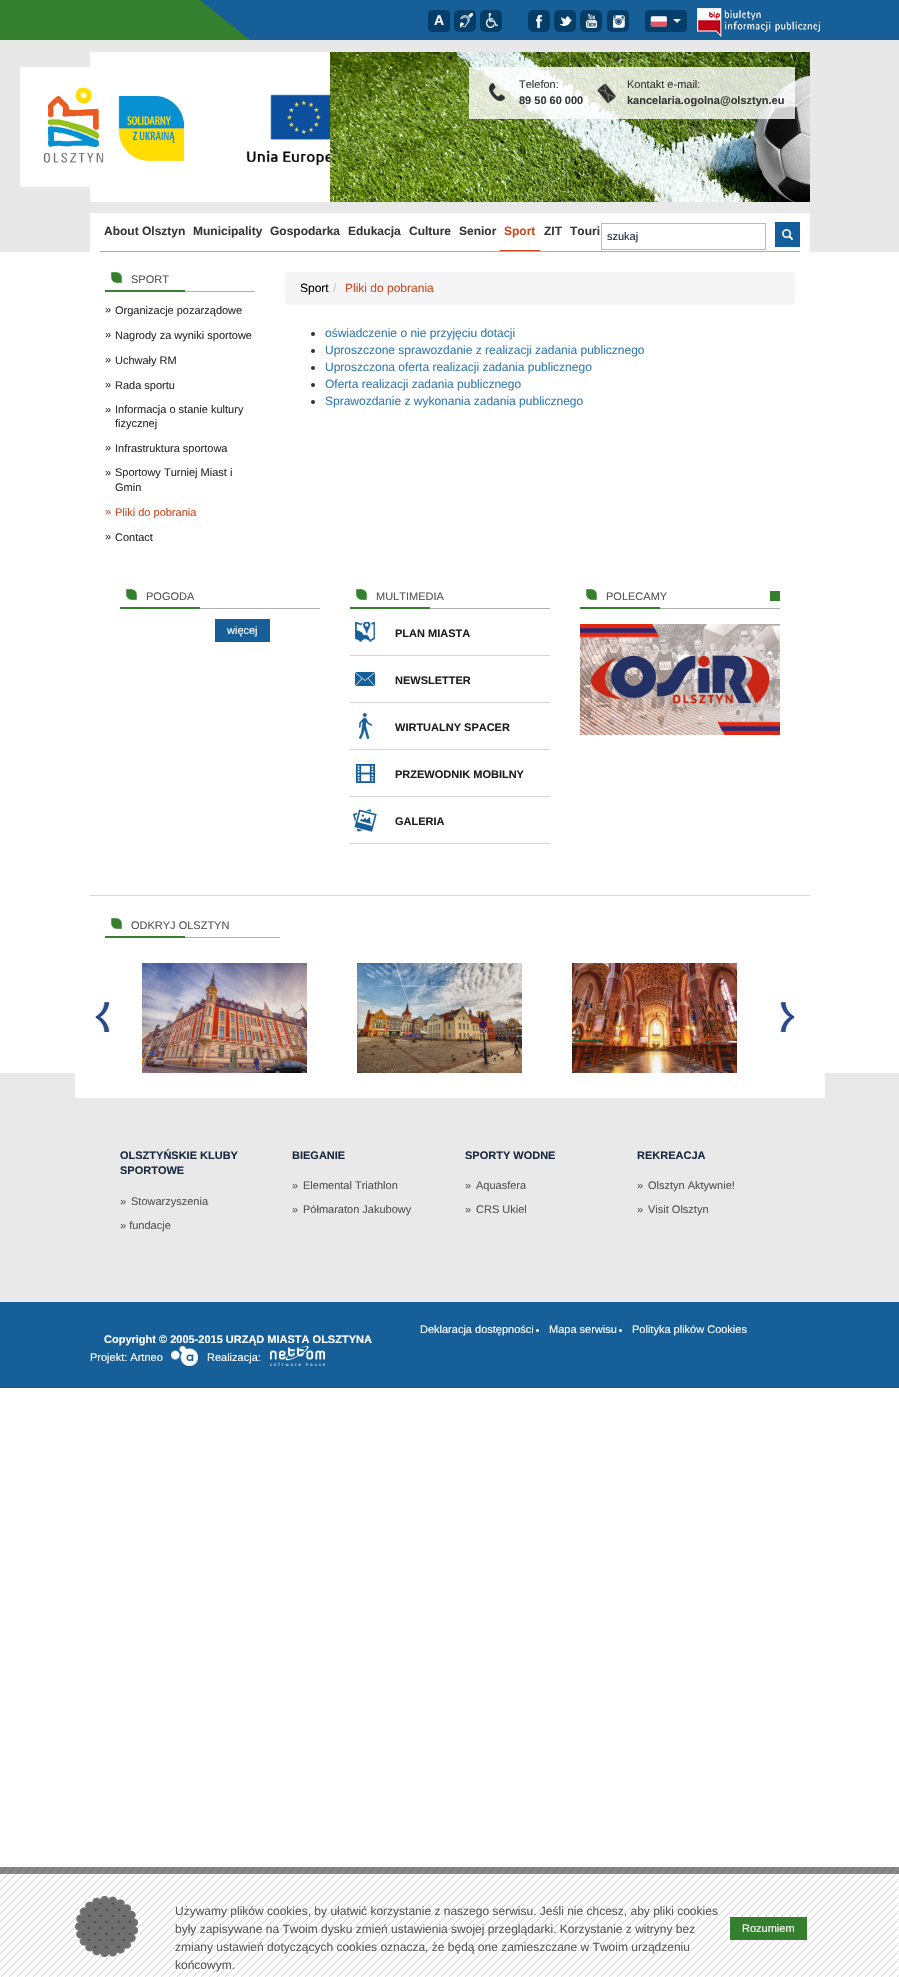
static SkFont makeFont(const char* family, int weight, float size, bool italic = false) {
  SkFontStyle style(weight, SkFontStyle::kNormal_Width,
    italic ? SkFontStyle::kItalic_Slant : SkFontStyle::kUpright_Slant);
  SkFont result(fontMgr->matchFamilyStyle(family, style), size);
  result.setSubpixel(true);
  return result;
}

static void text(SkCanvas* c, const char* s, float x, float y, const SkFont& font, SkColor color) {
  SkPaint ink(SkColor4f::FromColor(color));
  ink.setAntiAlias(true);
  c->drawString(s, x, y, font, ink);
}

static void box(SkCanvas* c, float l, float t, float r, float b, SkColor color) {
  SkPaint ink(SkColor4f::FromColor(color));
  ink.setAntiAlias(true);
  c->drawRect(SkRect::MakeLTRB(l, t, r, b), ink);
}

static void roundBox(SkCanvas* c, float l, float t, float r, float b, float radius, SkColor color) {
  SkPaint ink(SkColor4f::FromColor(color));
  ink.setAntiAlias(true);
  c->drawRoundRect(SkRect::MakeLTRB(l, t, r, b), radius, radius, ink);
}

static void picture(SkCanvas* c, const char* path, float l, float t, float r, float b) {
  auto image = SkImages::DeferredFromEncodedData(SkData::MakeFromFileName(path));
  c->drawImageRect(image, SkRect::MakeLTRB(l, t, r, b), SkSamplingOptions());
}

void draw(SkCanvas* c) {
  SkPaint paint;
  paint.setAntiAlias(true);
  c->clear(0xffffffff);
  box(c, 0, 0, 200, 40, 0xff35802e);
  box(c, 200, 0, 899, 40, 0xff165f99);
  paint.setColor(0xff35802e);
  c->drawPath(SkPathBuilder().moveTo(250, 40).lineTo(200, 40).lineTo(200, 0).close().detach(), paint);
  roundBox(c, 428, 10, 450, 32, 4, 0xff053e6b);
  SkFont face1 = makeFont("Liberation Sans", 700, 14);
  text(c, "A", 434, 25, face1, 0xfff5f6fa);
  roundBox(c, 454, 10, 476, 32, 5, 0xff053e69);
  picture(c, "img_01.png", 460, 13, 473, 28);
  roundBox(c, 480, 10, 502, 32, 5, 0xff053e69);
  picture(c, "img_02.png", 486, 13, 498, 28);
  roundBox(c, 528, 10, 550, 32, 5, 0xff053e69);
  picture(c, "img_03.png", 536, 15, 542, 28);
  roundBox(c, 554, 10, 576, 32, 5, 0xff053e69);
  picture(c, "img_04.png", 560, 16, 572, 26);
  roundBox(c, 580, 10, 602, 32, 5, 0xff053e69);
  picture(c, "img_05.png", 586, 14, 597, 28);
  roundBox(c, 607, 10, 629, 32, 5, 0xff053e69);
  picture(c, "img_06.png", 613, 15, 625, 28);
  roundBox(c, 645, 10, 687, 32, 4, 0xff053e6b);
  picture(c, "img_07.png", 650, 16, 667, 27);
  paint.setColor(0xfff5f6fa);
  c->drawPath(SkPathBuilder().moveTo(673, 19).lineTo(681, 19).lineTo(677, 23).close().detach(), paint);
  picture(c, "img_08.png", 697, 8, 820, 37);
  box(c, 0, 40, 899, 252, 0xffe8e8e8);
  box(c, 90, 52, 330, 202, 0xffffffff);
  picture(c, "img_09.png", 20, 67, 185, 187);
  picture(c, "img_10.png", 246, 94, 330, 166);
  picture(c, "img_11.png", 330, 52, 810, 202);
  box(c, 469, 67, 795, 119, 0xccffffff);
  picture(c, "img_12.png", 489, 83, 505, 101);
  SkFont face2 = makeFont("Liberation Sans", 400, 11);
  text(c, "Telefon:", 519, 88, face2, 0xff373737);
  SkFont face3 = makeFont("Liberation Sans", 700, 11);
  text(c, "89 50 60 000", 519, 104, face3, 0xff373737);
  picture(c, "img_13.png", 597, 83, 616, 104);
  text(c, "Kontakt e-mail:", 627, 88, face2, 0xff373737);
  text(c, "kancelaria.ogolna@olsztyn.eu", 627, 104, face3, 0xff373737);
  box(c, 90, 213, 810, 252, 0xffffffff);
  box(c, 100, 251, 800, 252, 0xffa6acb0);
  SkFont face4 = makeFont("Liberation Sans", 700, 12);
  text(c, "About Olsztyn", 104, 235, face4, 0xff373737);
  text(c, "Municipality", 193, 235, face4, 0xff373737);
  text(c, "Gospodarka", 270, 235, face4, 0xff373737);
  text(c, "Edukacja", 348, 235, face4, 0xff373737);
  text(c, "Culture", 409, 235, face4, 0xff373737);
  text(c, "Senior", 459, 235, face4, 0xff373737);
  box(c, 500, 250, 540, 251, 0xffcd491d);
  text(c, "Sport", 504, 235, face4, 0xffcd491d);
  text(c, "ZIT", 544, 235, face4, 0xff373737);
  text(c, "Touri", 570, 235, face4, 0xff373737);
  paint.setStyle(SkPaint::kStroke_Style);
  paint.setStrokeWidth(1);
  paint.setColor(0xffb8b8b8);
  c->drawRect(SkRect::MakeLTRB(601.5f, 223.5f, 765.5f, 249.5f), paint);
  text(c, "szukaj", 607, 240, face2, 0xff1b2940);
  box(c, 775, 222, 800, 247, 0xff135f9b);
  picture(c, "img_14.png", 782, 229, 793, 240);
  box(c, 0, 1073, 899, 1302, 0xffe9e9e9);
  box(c, 75, 1073, 825, 1098, 0xffffffff);
  picture(c, "img_15.png", 111, 272, 122, 283);
  box(c, 185, 291, 255, 292, 0xffb1b1b1);
  text(c, "SPORT", 131, 283, face2, 0xff535353);
  box(c, 105, 290, 185, 292, 0xff35802e);
  text(c, "»", 105, 313, face2, 0xff2e2e2e);
  text(c, "Organizacje pozarządowe", 115, 314, face2, 0xff2e2e2e);
  text(c, "»", 105, 338, face2, 0xff2e2e2e);
  text(c, "Nagrody za wyniki sportowe", 115, 339, face2, 0xff2e2e2e);
  text(c, "»", 105, 363, face2, 0xff2e2e2e);
  text(c, "Uchwały RM", 115, 364, face2, 0xff2e2e2e);
  text(c, "»", 105, 388, face2, 0xff2e2e2e);
  text(c, "Rada sportu", 115, 389, face2, 0xff2e2e2e);
  text(c, "»", 105, 413, face2, 0xff2e2e2e);
  text(c, "Informacja o stanie kultury", 115, 413, face2, 0xff2e2e2e);
  text(c, "fizycznej", 115, 427, face2, 0xff2e2e2e);
  text(c, "»", 105, 451, face2, 0xff2e2e2e);
  text(c, "Infrastruktura sportowa", 115, 452, face2, 0xff2e2e2e);
  text(c, "»", 105, 476, face2, 0xff2e2e2e);
  text(c, "Sportowy Turniej Miast i", 115, 476, face2, 0xff2e2e2e);
  text(c, "Gmin", 115, 491, face2, 0xff2e2e2e);
  text(c, "»", 105, 515, face2, 0xffcd491d);
  text(c, "Pliki do pobrania", 115, 516, face2, 0xffcd491d);
  text(c, "»", 105, 540, face2, 0xff2e2e2e);
  text(c, "Contact", 115, 541, face2, 0xff2e2e2e);
  roundBox(c, 285, 272, 795, 305, 4, 0xfff5f5f5);
  SkFont face5 = makeFont("Liberation Sans", 400, 12);
  text(c, "Sport", 300, 292, face5, 0xff000000);
  text(c, "/", 333, 292, face5, 0xffcccccc);
  text(c, "Pliki do pobrania", 345, 292, face5, 0xffcd491d);
  paint.setStyle(SkPaint::kFill_Style);
  paint.setColor(0xff333333);
  c->drawCircle(313, 334, 2, paint);
  text(c, "oświadczenie o nie przyjęciu dotacji", 325, 337, face5, 0xff347ab7);
  c->drawCircle(313, 351, 2, paint);
  text(c, "Uproszczone sprawozdanie z realizacji zadania publicznego", 325, 354, face5, 0xff347ab7);
  c->drawCircle(313, 368, 2, paint);
  text(c, "Uproszczona oferta realizacji zadania publicznego", 325, 371, face5, 0xff347ab7);
  c->drawCircle(313, 385, 2, paint);
  text(c, "Oferta realizacji zadania publicznego", 325, 388, face5, 0xff347ab7);
  c->drawCircle(313, 402, 2, paint);
  text(c, "Sprawozdanie z wykonania zadania publicznego", 325, 405, face5, 0xff347ab7);
  picture(c, "img_15.png", 126, 589, 137, 600);
  box(c, 200, 608, 320, 609, 0xffb1b1b1);
  text(c, "POGODA", 146, 600, face2, 0xff535353);
  box(c, 120, 607, 200, 609, 0xff35802e);
  box(c, 215, 619, 270, 642, 0xff165f99);
  text(c, "więcej", 227, 634, face2, 0xffffffff);
  picture(c, "img_15.png", 356, 589, 367, 600);
  box(c, 430, 608, 550, 609, 0xffb1b1b1);
  text(c, "MULTIMEDIA", 376, 600, face2, 0xff535353);
  box(c, 350, 607, 430, 609, 0xff35802e);
  box(c, 350, 655, 550, 656, 0xffd4d4d4);
  picture(c, "img_16.png", 355, 622, 375, 642);
  text(c, "PLAN MIASTA", 395, 637, face3, 0xff1f1f1f);
  box(c, 350, 702, 550, 703, 0xffd4d4d4);
  picture(c, "img_17.png", 355, 672, 375, 686);
  text(c, "NEWSLETTER", 395, 684, face3, 0xff1f1f1f);
  box(c, 350, 749, 550, 750, 0xffd4d4d4);
  picture(c, "img_18.png", 359, 713, 372, 739);
  text(c, "WIRTUALNY SPACER", 395, 731, face3, 0xff1f1f1f);
  box(c, 350, 796, 550, 797, 0xffd4d4d4);
  picture(c, "img_19.png", 356, 764, 375, 783);
  text(c, "PRZEWODNIK MOBILNY", 395, 778, face3, 0xff1f1f1f);
  box(c, 350, 843, 550, 844, 0xffd4d4d4);
  picture(c, "img_20.png", 353, 809, 377, 832);
  text(c, "GALERIA", 395, 825, face3, 0xff1f1f1f);
  box(c, 770, 591, 780, 601, 0xff35802e);
  picture(c, "img_21.png", 580, 624, 780, 735);
  picture(c, "img_15.png", 586, 589, 597, 600);
  box(c, 660, 608, 780, 609, 0xffb1b1b1);
  text(c, "POLECAMY", 606, 600, face2, 0xff535353);
  box(c, 580, 607, 660, 609, 0xff35802e);
  box(c, 90, 895, 810, 896, 0xffd9d9d9);
  picture(c, "img_15.png", 111, 918, 122, 929);
  box(c, 185, 937, 280, 938, 0xffb1b1b1);
  text(c, "ODKRYJ OLSZTYN", 131, 929, face2, 0xff535353);
  box(c, 105, 936, 185, 938, 0xff35802e);
  picture(c, "img_22.png", 142, 963, 307, 1073);
  picture(c, "img_23.png", 357, 963, 522, 1073);
  picture(c, "img_24.png", 572, 963, 737, 1073);
  picture(c, "img_25.png", 95, 1002, 110, 1032);
  picture(c, "img_26.png", 780, 1002, 795, 1032);
  text(c, "OLSZTYŃSKIE KLUBY", 120, 1159, face3, 0xff1b2940);
  text(c, "SPORTOWE", 120, 1174, face3, 0xff1b2940);
  text(c, "»", 120, 1205, face2, 0xff535353);
  text(c, "Stowarzyszenia", 131, 1205, face2, 0xff535353);
  text(c, "» fundacje", 120, 1229, face2, 0xff535353);
  text(c, "BIEGANIE", 292, 1159, face3, 0xff1b2940);
  text(c, "»", 292, 1189, face2, 0xff535353);
  text(c, "Elemental Triathlon", 303, 1189, face2, 0xff535353);
  text(c, "»", 292, 1213, face2, 0xff535353);
  text(c, "Półmaraton Jakubowy", 303, 1213, face2, 0xff535353);
  text(c, "SPORTY WODNE", 465, 1159, face3, 0xff1b2940);
  text(c, "»", 465, 1189, face2, 0xff535353);
  text(c, "Aquasfera", 476, 1189, face2, 0xff535353);
  text(c, "»", 465, 1213, face2, 0xff535353);
  text(c, "CRS Ukiel", 476, 1213, face2, 0xff535353);
  text(c, "REKREACJA", 637, 1159, face3, 0xff1b2940);
  text(c, "»", 637, 1189, face2, 0xff535353);
  text(c, "Olsztyn Aktywnie!", 648, 1189, face2, 0xff535353);
  text(c, "»", 637, 1213, face2, 0xff535353);
  text(c, "Visit Olsztyn", 648, 1213, face2, 0xff535353);
  box(c, 0, 1302, 899, 1388, 0xff165f99);
  text(c, "Deklaracja dostępności", 420, 1333, face2, 0xffffffff);
  paint.setColor(0xffffffff);
  c->drawCircle(537.5f, 1330.5f, 1.5f, paint);
  text(c, "Mapa serwisu", 549, 1333, face2, 0xffffffff);
  c->drawCircle(620.5f, 1330.5f, 1.5f, paint);
  text(c, "Polityka plików Cookies", 632, 1333, face2, 0xffffffff);
  text(c, "Copyright © 2005-2015 URZĄD MIASTA OLSZTYNA", 104, 1343, face3, 0xffffffff);
  text(c, "Projekt: Artneo", 90, 1361, face2, 0xffffffff);
  picture(c, "img_27.png", 171, 1346, 198, 1366);
  text(c, "Realizacja:", 207, 1361, face2, 0xffffffff);
  picture(c, "img_28.png", 270, 1346, 325, 1366);
  picture(c, "img_29.png", 0, 1867, 899, 1977);
  picture(c, "img_30.png", 75, 1896, 138, 1957);
  text(c, "Używamy plików cookies, by ułatwić korzystanie z naszego serwisu. Jeśli nie chcesz, aby pliki cookies", 175, 1915, face5, 0xff58585a);
  text(c, "były zapisywane na Twoim dysku zmień ustawienia swojej przeglądarki. Korzystanie z witryny bez", 175, 1933, face5, 0xff58585a);
  box(c, 730, 1917, 807, 1940, 0xff35802e);
  text(c, "Rozumiem", 742, 1932, face2, 0xffffffff);
  text(c, "zmiany ustawień dotyczących cookies oznacza, że będą one zamieszczane w Twoim urządzeniu", 175, 1951, face5, 0xff58585a);
  text(c, "końcowym.", 175, 1969, face5, 0xff58585a);
}
